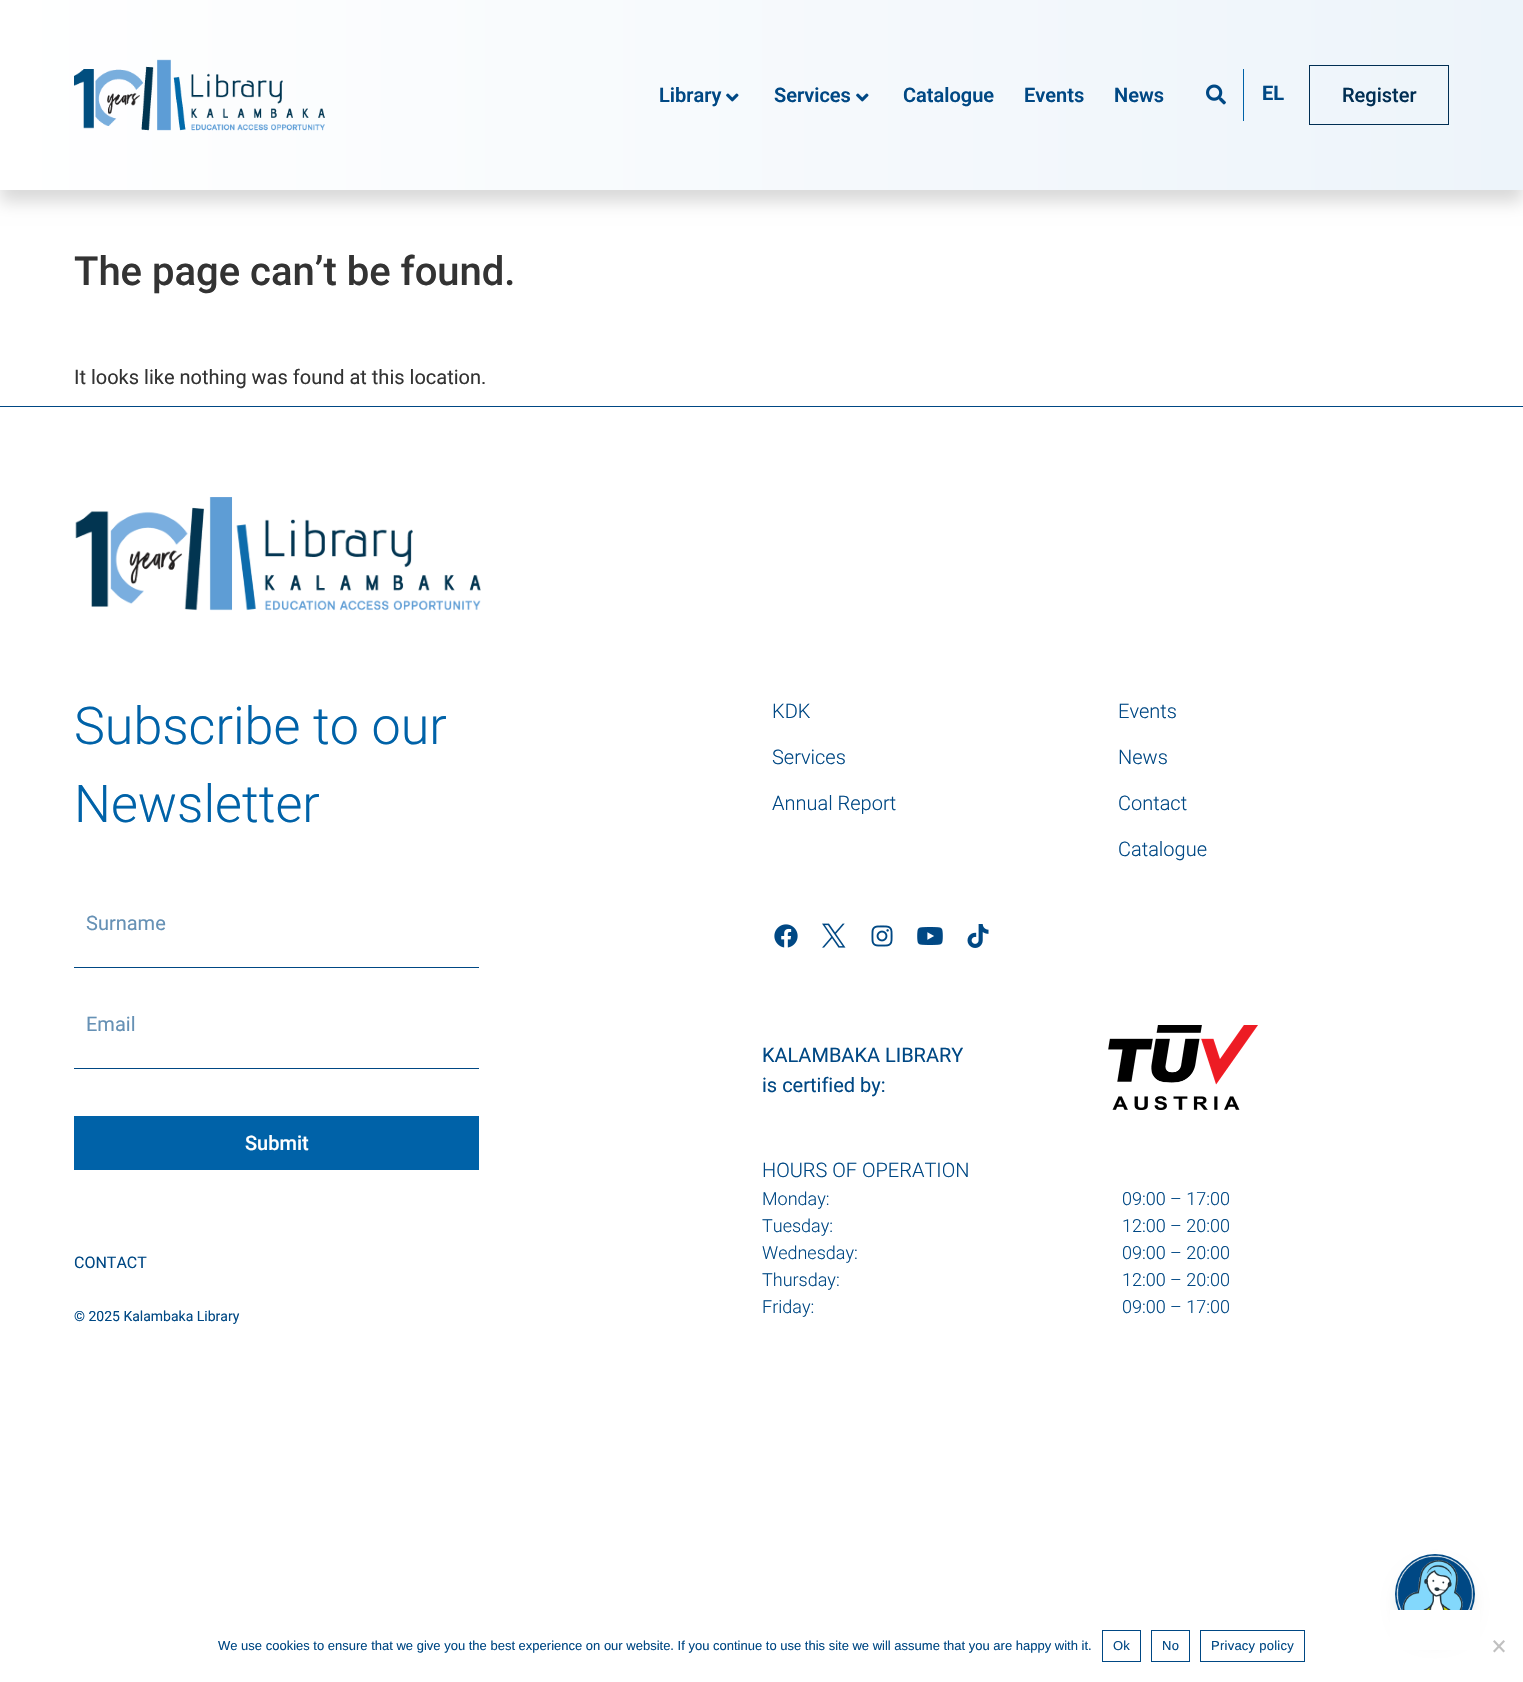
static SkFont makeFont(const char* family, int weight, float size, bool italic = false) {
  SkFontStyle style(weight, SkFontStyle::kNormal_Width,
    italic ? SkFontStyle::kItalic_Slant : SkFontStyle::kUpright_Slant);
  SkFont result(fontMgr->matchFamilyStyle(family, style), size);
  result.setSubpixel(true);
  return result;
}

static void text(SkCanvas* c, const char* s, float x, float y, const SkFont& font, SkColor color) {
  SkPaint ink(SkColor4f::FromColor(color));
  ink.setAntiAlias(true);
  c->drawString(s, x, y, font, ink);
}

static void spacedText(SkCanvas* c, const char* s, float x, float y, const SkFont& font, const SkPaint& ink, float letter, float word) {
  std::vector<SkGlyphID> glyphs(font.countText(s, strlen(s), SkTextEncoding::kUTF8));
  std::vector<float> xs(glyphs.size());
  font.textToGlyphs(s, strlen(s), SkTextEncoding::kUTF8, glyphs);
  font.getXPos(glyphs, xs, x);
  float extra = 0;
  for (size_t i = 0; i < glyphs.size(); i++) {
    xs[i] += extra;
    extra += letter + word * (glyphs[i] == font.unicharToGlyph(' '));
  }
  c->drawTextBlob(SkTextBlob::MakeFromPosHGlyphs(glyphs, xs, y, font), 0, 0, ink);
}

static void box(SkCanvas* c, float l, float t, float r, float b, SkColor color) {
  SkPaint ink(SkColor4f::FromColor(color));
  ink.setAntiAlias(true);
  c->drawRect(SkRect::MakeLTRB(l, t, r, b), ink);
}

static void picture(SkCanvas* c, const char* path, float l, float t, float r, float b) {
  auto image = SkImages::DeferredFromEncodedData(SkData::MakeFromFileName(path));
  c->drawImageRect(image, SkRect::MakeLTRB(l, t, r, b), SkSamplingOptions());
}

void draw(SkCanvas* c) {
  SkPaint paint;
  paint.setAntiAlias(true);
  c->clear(0xffffffff);
  paint.setColor(0x26000000);
  paint.setMaskFilter(SkMaskFilter::MakeBlur(kNormal_SkBlurStyle, 8));
  c->drawRect(SkRect::MakeLTRB(0, 12, 1523, 202), paint);
  paint.setMaskFilter(nullptr);
  {
    const SkColor colors[] = {0xffffffff, 0xffedf4fa};
    const float stops[] = {0, 1};
    const SkPoint ends[] = {{0, 95}, {1523, 95}};
    paint.setShader(SkGradientShader::MakeLinear(ends, colors, stops, 2, SkTileMode::kClamp));
    paint.setAlpha(255);
  }
  c->drawRect(SkRect::MakeLTRB(0, 0, 1523, 190), paint);
  picture(c, "img_01.png", 74, 59, 325, 131);
  SkFont face1 = makeFont("Roboto", 600, 20);
  text(c, "Library", 659, 102, face1, 0xff004884);
  picture(c, "img_02.png", 726, 93, 739, 102);
  text(c, "Services", 774, 102, face1, 0xff004884);
  picture(c, "img_03.png", 856, 93, 869, 102);
  text(c, "Catalogue", 903, 102, face1, 0xff004884);
  text(c, "Events", 1024, 102, face1, 0xff004884);
  text(c, "News", 1114, 102, face1, 0xff004884);
  box(c, 1243, 69, 1244, 121, 0xff0062a8);
  picture(c, "img_04.png", 1206, 84, 1226, 105);
  SkFont face2 = makeFont("Roboto", 700, 20);
  text(c, "EL", 1262, 100, face2, 0xff004884);
  paint.setStyle(SkPaint::kStroke_Style);
  paint.setStrokeWidth(1);
  paint.setShader(nullptr);
  paint.setColor(0xff002e53);
  c->drawRect(SkRect::MakeLTRB(1309.5f, 65.5f, 1448.5f, 124.5f), paint);
  SkFont face3 = makeFont("Roboto", 500, 20);
  text(c, "Register", 1342, 102, face3, 0xff002e53);
  SkFont face4 = makeFont("Roboto", 500, 40);
  text(c, "The page can’t be found.", 74, 285, face4, 0xff333333);
  SkFont face5 = makeFont("Roboto", 400, 20);
  text(c, "It looks like nothing was found at this location.", 74, 384, face5, 0xff333333);
  box(c, 0, 406, 1523, 407, 0xff004884);
  picture(c, "img_05.png", 75, 497, 481, 611);
  SkFont face6 = makeFont("Roboto", 300, 52);
  text(c, "Subscribe to our", 74, 744, face6, 0xff0062a8);
  text(c, "Newsletter", 74, 822, face6, 0xff0062a8);
  box(c, 74, 967, 479, 968, 0xff004884);
  text(c, "Surname", 86, 930, face5, 0xff6691b5);
  box(c, 74, 1068, 479, 1069, 0xff004884);
  text(c, "Email", 86, 1031, face5, 0xff6691b5);
  box(c, 74, 1116, 479, 1170, 0xff0062a8);
  text(c, "Submit", 245, 1150, face3, 0xffffffff);
  SkFont face7 = makeFont("Roboto", 400, 16);
  text(c, "CONTACT", 74, 1268, face7, 0xff004884);
  SkFont face8 = makeFont("Roboto", 400, 14);
  text(c, "© 2025 Kalambaka Library", 74, 1321, face8, 0xff004884);
  SkFont face9 = makeFont("Roboto", 300, 20);
  text(c, "KDK", 772, 718, face9, 0xff004884);
  text(c, "Services", 772, 764, face9, 0xff004884);
  text(c, "Annual Report", 772, 810, face9, 0xff004884);
  text(c, "Events", 1118, 718, face9, 0xff004884);
  text(c, "News", 1118, 764, face9, 0xff004884);
  text(c, "Contact", 1118, 810, face9, 0xff004884);
  text(c, "Catalogue", 1118, 856, face9, 0xff004884);
  picture(c, "img_06.png", 774, 924, 798, 948);
  picture(c, "img_07.png", 822, 923, 846, 948);
  picture(c, "img_08.png", 871, 925, 893, 947);
  picture(c, "img_09.png", 917, 927, 943, 945);
  picture(c, "img_10.png", 967, 924, 989, 948);
  text(c, "KALAMBAKA LIBRARY", 762, 1062, face5, 0xff004884);
  text(c, "is certified by:", 762, 1092, face5, 0xff004884);
  picture(c, "img_11.png", 1108, 1025, 1258, 1110);
  text(c, "HOURS OF OPERATION", 762, 1177, face9, 0xff004884);
  SkFont face10 = makeFont("Roboto", 300, 18);
  text(c, "Monday:", 762, 1205, face10, 0xff004884);
  text(c, "09:00 – 17:00", 1122, 1205, face10, 0xff004884);
  text(c, "Tuesday:", 762, 1232, face10, 0xff004884);
  text(c, "12:00 – 20:00", 1122, 1232, face10, 0xff004884);
  text(c, "Wednesday:", 762, 1259, face10, 0xff004884);
  text(c, "09:00 – 20:00", 1122, 1259, face10, 0xff004884);
  text(c, "Thursday:", 762, 1286, face10, 0xff004884);
  text(c, "12:00 – 20:00", 1122, 1286, face10, 0xff004884);
  text(c, "Friday:", 762, 1313, face10, 0xff004884);
  text(c, "09:00 – 17:00", 1122, 1313, face10, 0xff004884);
  paint.setStyle(SkPaint::kFill_Style);
  paint.setColor(0x1a000000);
  paint.setMaskFilter(SkMaskFilter::MakeBlur(kNormal_SkBlurStyle, 7.5f));
  c->drawRoundRect(SkRect::MakeLTRB(1398, 1567, 1472, 1641), 37, 37, paint);
  paint.setMaskFilter(nullptr);
  paint.setColor(0xff004884);
  c->drawCircle(1435, 1594, 40, paint);
  box(c, 1390, 1610, 1480, 1650, 0xffffffff);
  SkFont face11 = makeFont("Liberation Sans", 400, 13);
  text(c, "We use cookies to ensure that we give you the best experience on our website. If you continue to use this site we will assume that you are happy with it.", 218, 1650, face11, 0xff004884);
  paint.setStyle(SkPaint::kStroke_Style);
  c->drawRect(SkRect::MakeLTRB(1102.5f, 1630.5f, 1140.5f, 1661.5f), paint);
  paint.setStyle(SkPaint::kFill_Style);
  spacedText(c, "Ok", 1113, 1650, face11, paint, 0.25f, 0);
  paint.setStyle(SkPaint::kStroke_Style);
  c->drawRect(SkRect::MakeLTRB(1151.5f, 1630.5f, 1189.5f, 1661.5f), paint);
  paint.setStyle(SkPaint::kFill_Style);
  spacedText(c, "No", 1162, 1650, face11, paint, 0.25f, 0);
  paint.setStyle(SkPaint::kStroke_Style);
  c->drawRect(SkRect::MakeLTRB(1200.5f, 1630.5f, 1304.5f, 1661.5f), paint);
  paint.setStyle(SkPaint::kFill_Style);
  spacedText(c, "Privacy policy", 1211, 1650, face11, paint, 0.25f, 0);
  paint.setColor(0xffc0c0c0);
  c->drawPath(SkPathBuilder().moveTo(1503.5f, 1640).lineTo(1505, 1641.5f).lineTo(1494.5f, 1652.5f).lineTo(1493, 1651).close().detach(), paint);
  c->drawPath(SkPathBuilder().moveTo(1493, 1641.5f).lineTo(1494.5f, 1640).lineTo(1505, 1651).lineTo(1503.5f, 1652.5f).close().detach(), paint);
  picture(c, "img_12.png", 1396, 1555, 1473, 1610);
}
